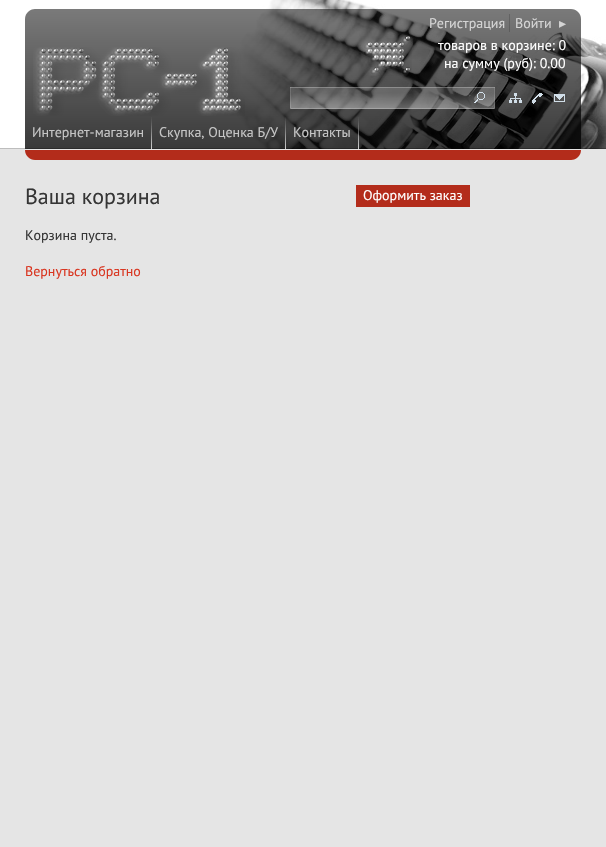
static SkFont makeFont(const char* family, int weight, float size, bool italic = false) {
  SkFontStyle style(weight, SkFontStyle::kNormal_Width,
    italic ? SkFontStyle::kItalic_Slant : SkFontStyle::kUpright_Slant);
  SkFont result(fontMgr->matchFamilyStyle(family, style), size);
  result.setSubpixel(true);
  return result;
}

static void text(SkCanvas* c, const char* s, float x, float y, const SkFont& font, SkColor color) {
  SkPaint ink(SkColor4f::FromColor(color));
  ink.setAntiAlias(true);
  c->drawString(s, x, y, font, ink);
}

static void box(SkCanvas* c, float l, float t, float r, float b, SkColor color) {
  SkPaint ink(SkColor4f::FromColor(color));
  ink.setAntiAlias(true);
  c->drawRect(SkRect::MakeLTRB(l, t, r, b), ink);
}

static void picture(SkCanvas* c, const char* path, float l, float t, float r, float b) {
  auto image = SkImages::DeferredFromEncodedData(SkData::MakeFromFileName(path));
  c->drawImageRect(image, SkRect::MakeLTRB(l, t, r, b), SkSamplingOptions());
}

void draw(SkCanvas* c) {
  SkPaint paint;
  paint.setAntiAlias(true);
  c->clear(0xffe5e5e5);
  box(c, 0, 0, 231, 149, 0xffffffff);
  picture(c, "img_01.png", 231, 0, 606, 149);
  box(c, 0, 148, 606, 149, 0x42000000);
  {
    const SkColor colors[] = {0x85000000, 0xde000000};
    const float stops[] = {0, 1};
    const SkPoint ends[] = {{303, 9}, {303, 201}};
    paint.setShader(SkGradientShader::MakeLinear(ends, colors, stops, 2, SkTileMode::kClamp));
    paint.setAlpha(255);
  }
  c->drawPath(SkPathBuilder().moveTo(35, 9).lineTo(571, 9).cubicTo(576.5f, 9, 581, 13.5f, 581, 19).lineTo(581, 149).lineTo(25, 149).lineTo(25, 19).cubicTo(25, 13.5f, 29.5f, 9, 35, 9).close().detach(), paint);
  SkFont face1 = makeFont("PT Sans", 400, 14);
  text(c, "Регистрация", 429, 28, face1, 0xffd5d5d5);
  box(c, 509, 14, 510, 32, 0x2b000000);
  text(c, "Войти", 515, 28, face1, 0xffd5d5d5);
  SkFont face2 = makeFont("DejaVu Sans", 400, 14);
  text(c, "▸", 559, 28, face2, 0xffd5d5d5);
  picture(c, "img_02.png", 33, 47, 245, 116);
  {
    const SkColor colors[] = {0x5cffffff, 0x24ffffff, 0x24ffffff};
    const float stops[] = {0, 0.75f, 1};
    const SkPoint ends[] = {{393, 88}, {393, 68}};
    paint.setShader(SkGradientShader::MakeLinear(ends, colors, stops, 3, SkTileMode::kClamp));
    paint.setAlpha(255);
  }
  c->drawRect(SkRect::MakeLTRB(290, 87, 495, 88), paint);
  {
    const SkColor colors[] = {0x5cffffff, 0x24ffffff, 0x24ffffff};
    const float stops[] = {0, 0.75f, 1};
    const SkPoint ends[] = {{393, 108}, {393, 88}};
    paint.setShader(SkGradientShader::MakeLinear(ends, colors, stops, 3, SkTileMode::kClamp));
    paint.setAlpha(255);
  }
  c->drawRect(SkRect::MakeLTRB(290, 88, 495, 108), paint);
  {
    const SkColor colors[] = {0x5cffffff, 0x24ffffff, 0x24ffffff};
    const float stops[] = {0, 0.75f, 1};
    const SkPoint ends[] = {{393, 128}, {393, 108}};
    paint.setShader(SkGradientShader::MakeLinear(ends, colors, stops, 3, SkTileMode::kClamp));
    paint.setAlpha(255);
  }
  c->drawRect(SkRect::MakeLTRB(290, 108, 495, 109), paint);
  paint.setShader(nullptr);
  paint.setColor(0x21ffffff);
  c->drawPath(SkPathBuilder().moveTo(495, 87).lineTo(495, 109).lineTo(494, 108).lineTo(494, 88).close().detach(), paint);
  paint.setColor(0x69ffffff);
  c->drawPath(SkPathBuilder().moveTo(495, 109).lineTo(290, 109).lineTo(291, 108).lineTo(494, 108).close().detach(), paint);
  paint.setColor(0x21ffffff);
  c->drawPath(SkPathBuilder().moveTo(290, 109).lineTo(290, 87).lineTo(291, 88).lineTo(291, 108).close().detach(), paint);
  picture(c, "img_03.png", 474, 92, 485, 103);
  picture(c, "img_04.png", 361, 35, 412, 76);
  text(c, "товаров в корзине: 0", 438, 50, face1, 0xffffffff);
  text(c, "на сумму (руб): 0.00", 444, 68, face1, 0xffffffff);
  picture(c, "img_05.png", 509, 93, 522, 103);
  picture(c, "img_06.png", 532, 93, 543, 104);
  picture(c, "img_07.png", 554, 94, 565, 102);
  text(c, "Интернет-магазин", 32, 137, face1, 0xffc6c6c6);
  picture(c, "img_08.png", 151, 117, 152, 149);
  text(c, "Скупка, Оценка Б/У", 159, 137, face1, 0xffc6c6c6);
  picture(c, "img_09.png", 285, 117, 286, 149);
  text(c, "Контакты", 293, 137, face1, 0xffc6c6c6);
  picture(c, "img_10.png", 358, 117, 359, 149);
  paint.setColor(0xffb32c1b);
  c->drawPath(SkPathBuilder().moveTo(25, 150).lineTo(581, 150).cubicTo(581, 155.5f, 576.5f, 160, 571, 160).lineTo(35, 160).cubicTo(29.5f, 160, 25, 155.5f, 25, 150).close().detach(), paint);
  SkFont face3 = makeFont("PT Sans", 400, 22);
  text(c, "Ваша корзина", 25, 204, face3, 0xff353535);
  box(c, 356, 185, 470, 207, 0xffb32c1b);
  text(c, "Оформить заказ", 363, 200, face1, 0xffffffff);
  text(c, "Корзина пуста.", 25, 240, face1, 0xff353535);
  text(c, "Вернуться обратно", 25, 276, face1, 0xffd93621);
}
